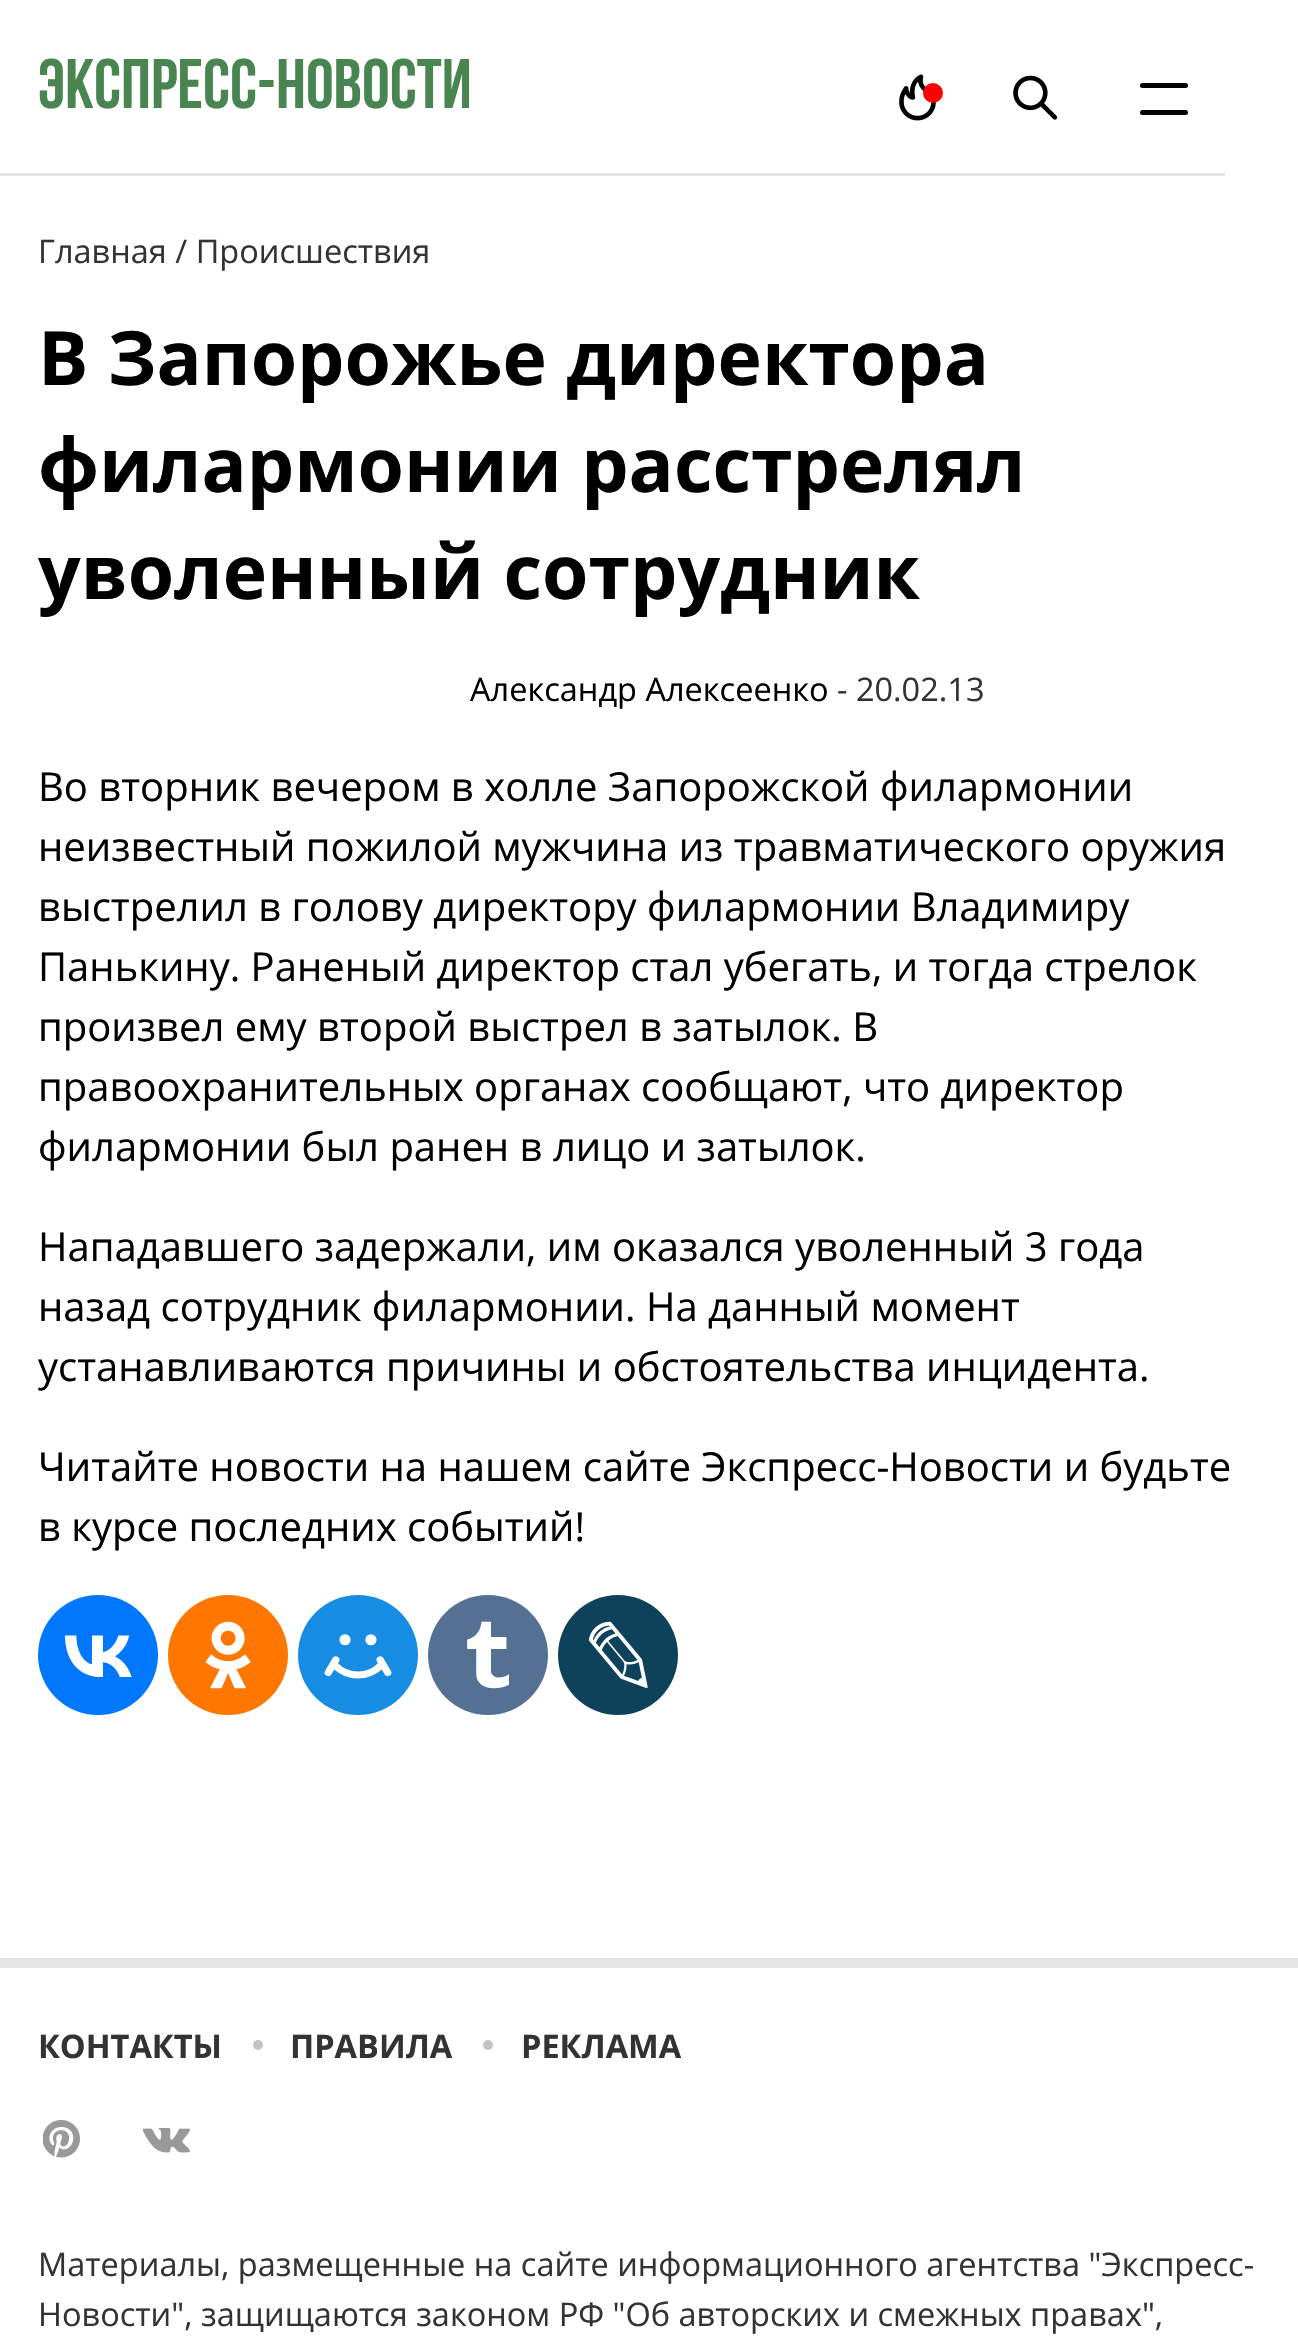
static SkFont makeFont(const char* family, int weight, float size, bool italic = false) {
  SkFontStyle style(weight, SkFontStyle::kNormal_Width,
    italic ? SkFontStyle::kItalic_Slant : SkFontStyle::kUpright_Slant);
  SkFont result(fontMgr->matchFamilyStyle(family, style), size);
  result.setSubpixel(true);
  return result;
}

static void text(SkCanvas* c, const char* s, float x, float y, const SkFont& font, SkColor color) {
  SkPaint ink(SkColor4f::FromColor(color));
  ink.setAntiAlias(true);
  c->drawString(s, x, y, font, ink);
}

static void box(SkCanvas* c, float l, float t, float r, float b, SkColor color) {
  SkPaint ink(SkColor4f::FromColor(color));
  ink.setAntiAlias(true);
  c->drawRect(SkRect::MakeLTRB(l, t, r, b), ink);
}

static void roundBox(SkCanvas* c, float l, float t, float r, float b, float radius, SkColor color) {
  SkPaint ink(SkColor4f::FromColor(color));
  ink.setAntiAlias(true);
  c->drawRoundRect(SkRect::MakeLTRB(l, t, r, b), radius, radius, ink);
}

static void picture(SkCanvas* c, const char* path, float l, float t, float r, float b) {
  auto image = SkImages::DeferredFromEncodedData(SkData::MakeFromFileName(path));
  c->drawImageRect(image, SkRect::MakeLTRB(l, t, r, b), SkSamplingOptions());
}

void draw(SkCanvas* c) {
  SkPaint paint;
  paint.setAntiAlias(true);
  c->clear(0xffffffff);
  box(c, 0, 173, 1225, 176, 0xffe5e5e5);
  SkFont face1 = makeFont("Bebas Neue", 700, 70);
  text(c, "экспресс-новости", 38, 108, face1, 0xff488551);
  picture(c, "img_01.png", 899, 74, 936, 121);
  paint.setColor(0xffff0000);
  c->drawCircle(933, 93, 10, paint);
  picture(c, "img_02.png", 1013, 75, 1058, 120);
  roundBox(c, 1140, 83, 1188, 88, 2.5f, 0xff020304);
  roundBox(c, 1140, 110, 1188, 115, 2.5f, 0xff020304);
  SkFont face2 = makeFont("Open Sans", 400, 32.5f);
  text(c, "Главная / Происшествия", 38, 263, face2, 0xff333333);
  SkFont face3 = makeFont("Open Sans", 700, 75);
  text(c, "В Запорожье директора", 38, 385, face3, 0xff000000);
  text(c, "филармонии расстрелял", 38, 492, face3, 0xff000000);
  text(c, "уволенный сотрудник", 38, 599, face3, 0xff000000);
  text(c, "Александр Алексеенко", 470, 701, face2, 0xff000000);
  text(c, "- 20.02.13", 837, 701, face2, 0xff333333);
  SkFont face4 = makeFont("Open Sans", 400, 40);
  text(c, "Во вторник вечером в холле Запорожской филармонии", 38, 801, face4, 0xff000000);
  text(c, "неизвестный пожилой мужчина из травматического оружия", 38, 861, face4, 0xff000000);
  text(c, "выстрелил в голову директору филармонии Владимиру", 38, 921, face4, 0xff000000);
  text(c, "Панькину. Раненый директор стал убегать, и тогда стрелок", 38, 981, face4, 0xff000000);
  text(c, "произвел ему второй выстрел в затылок. В", 38, 1041, face4, 0xff000000);
  text(c, "правоохранительных органах сообщают, что директор", 38, 1101, face4, 0xff000000);
  text(c, "филармонии был ранен в лицо и затылок.", 38, 1161, face4, 0xff000000);
  text(c, "Нападавшего задержали, им оказался уволенный 3 года", 38, 1261, face4, 0xff000000);
  text(c, "назад сотрудник филармонии. На данный момент", 38, 1321, face4, 0xff000000);
  text(c, "устанавливаются причины и обстоятельства инцидента.", 38, 1381, face4, 0xff000000);
  text(c, "Читайте новости на нашем сайте Экспресс-Новости и будьте", 38, 1481, face4, 0xff000000);
  text(c, "в курсе последних событий!", 38, 1541, face4, 0xff000000);
  paint.setColor(0xff0077ff);
  c->drawCircle(98, 1655, 60, paint);
  picture(c, "img_03.png", 64, 1635, 132, 1677);
  paint.setColor(0xffff7700);
  c->drawCircle(228, 1655, 60, paint);
  picture(c, "img_04.png", 205, 1621, 251, 1689);
  paint.setColor(0xff168de2);
  c->drawCircle(358, 1655, 60, paint);
  picture(c, "img_05.png", 324, 1634, 392, 1679);
  paint.setColor(0xff547093);
  c->drawCircle(488, 1655, 60, paint);
  picture(c, "img_06.png", 467, 1621, 510, 1689);
  paint.setColor(0xff0d425a);
  c->drawCircle(618, 1655, 60, paint);
  picture(c, "img_07.png", 588, 1621, 648, 1689);
  box(c, 0, 1958, 1298, 1968, 0xffe5e5e5);
  SkFont face5 = makeFont("Open Sans", 700, 32.5f);
  text(c, "КОНТАКТЫ", 38, 2058, face5, 0xff333333);
  paint.setColor(0xffc4c4c4);
  c->drawCircle(258, 2045, 5, paint);
  text(c, "ПРАВИЛА", 290, 2058, face5, 0xff333333);
  c->drawCircle(488, 2045, 5, paint);
  text(c, "РЕКЛАМА", 521, 2058, face5, 0xff333333);
  picture(c, "img_08.png", 43, 2120, 80, 2158);
  picture(c, "img_09.png", 143, 2128, 190, 2153);
  text(c, "Материалы, размещенные на сайте информационного агентства \"Экспресс-", 38, 2276, face2, 0xff333333);
  text(c, "Новости\", защищаются законом РФ \"Об авторских и смежных правах\",", 38, 2326, face2, 0xff333333);
}
